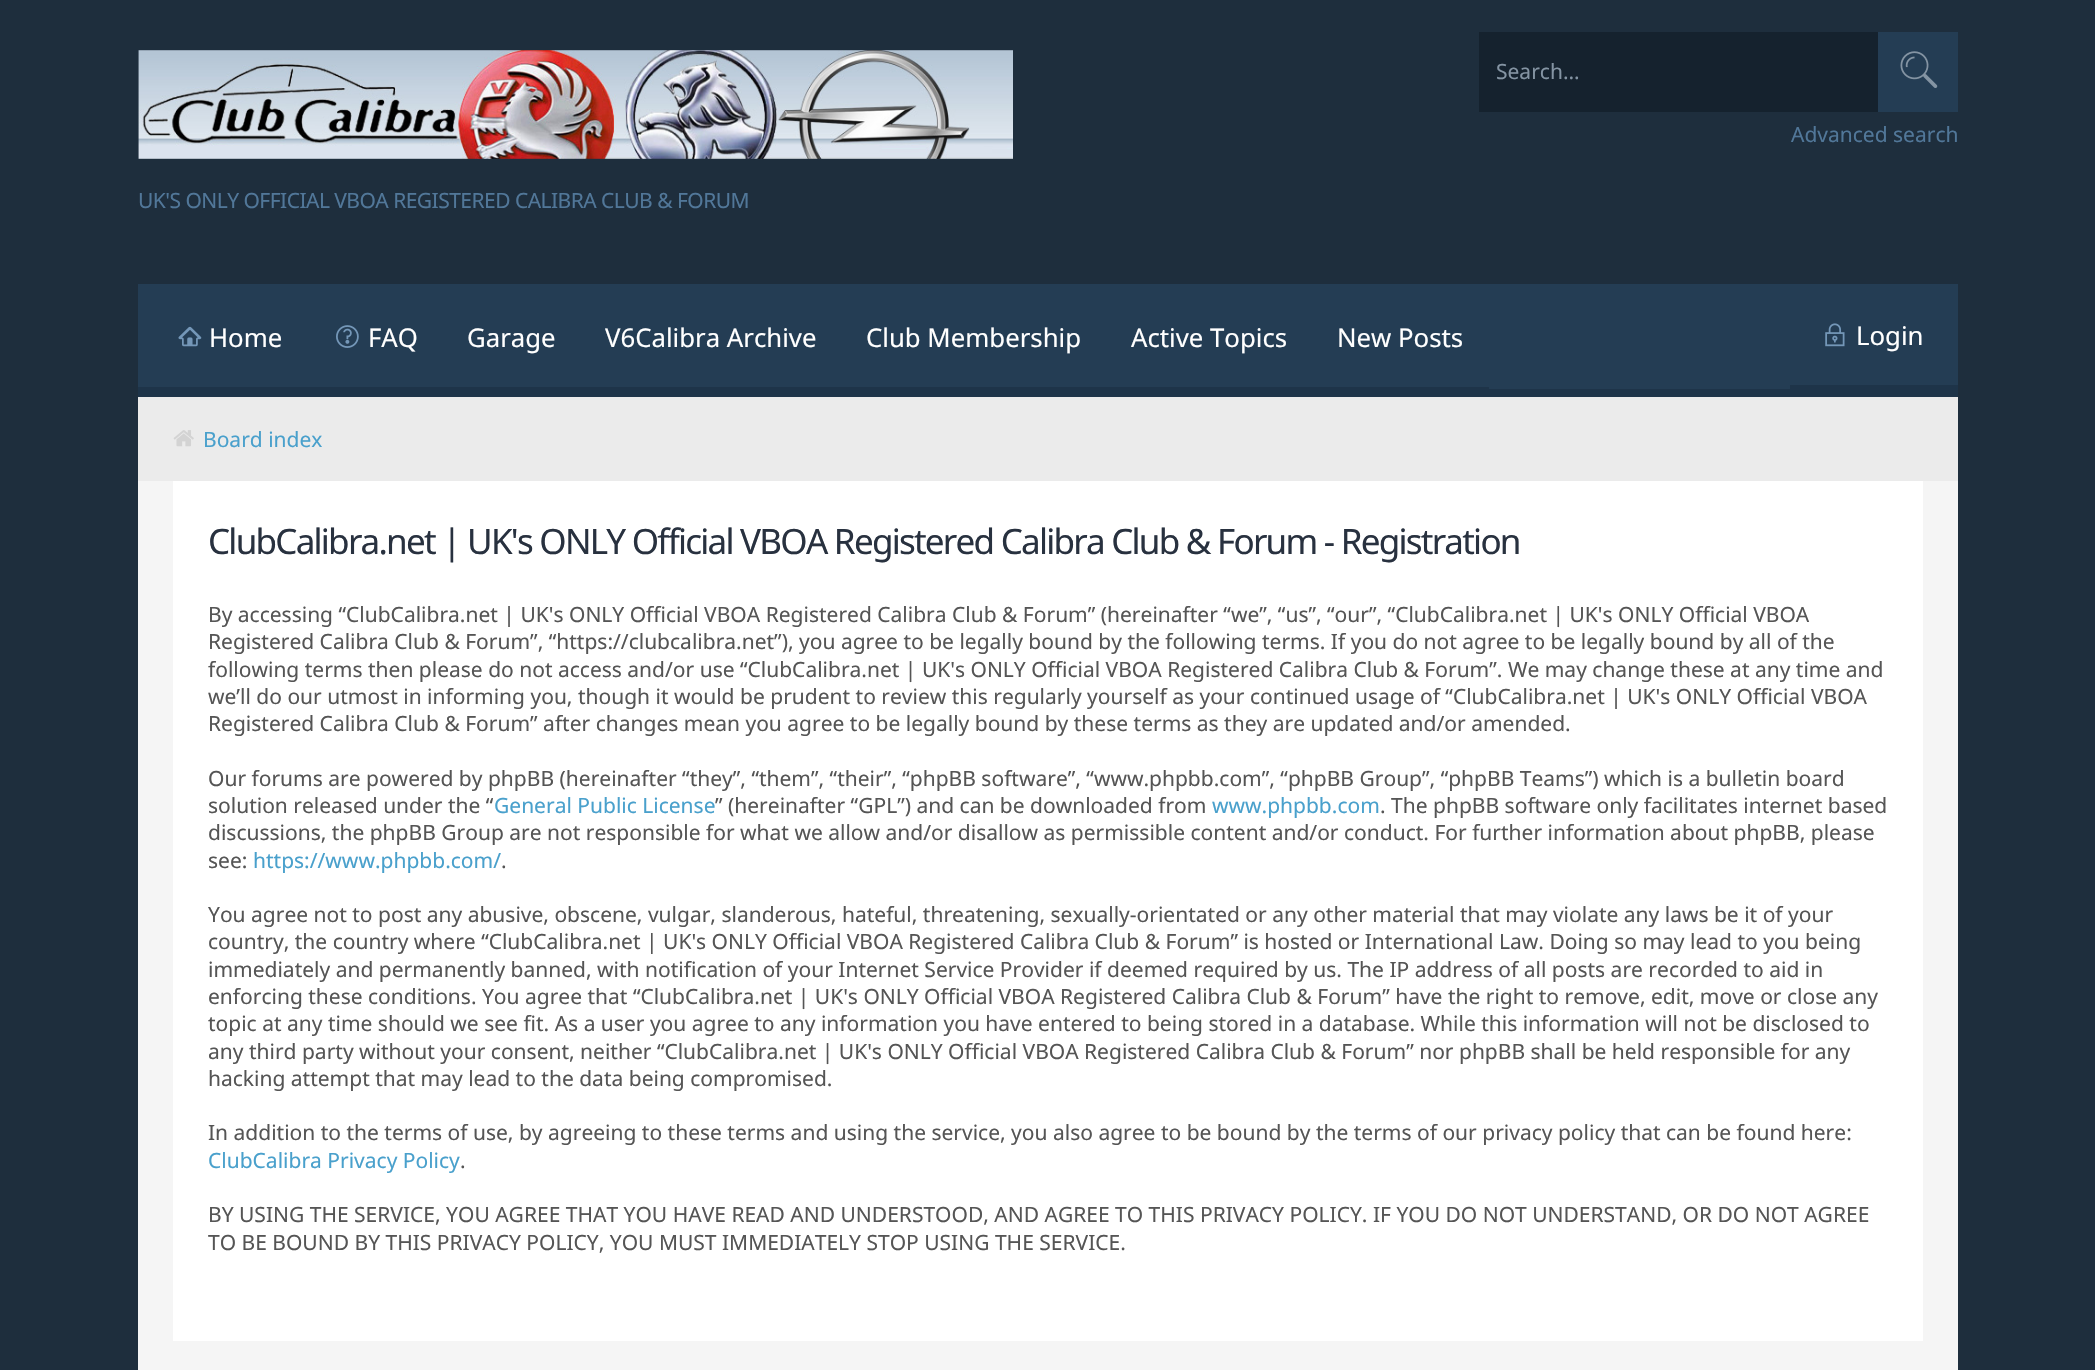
static SkFont makeFont(const char* family, int weight, float size, bool italic = false) {
  SkFontStyle style(weight, SkFontStyle::kNormal_Width,
    italic ? SkFontStyle::kItalic_Slant : SkFontStyle::kUpright_Slant);
  SkFont result(fontMgr->matchFamilyStyle(family, style), size);
  result.setSubpixel(true);
  return result;
}

static void text(SkCanvas* c, const char* s, float x, float y, const SkFont& font, SkColor color) {
  SkPaint ink(SkColor4f::FromColor(color));
  ink.setAntiAlias(true);
  c->drawString(s, x, y, font, ink);
}

static void spacedText(SkCanvas* c, const char* s, float x, float y, const SkFont& font, const SkPaint& ink, float letter, float word) {
  std::vector<SkGlyphID> glyphs(font.countText(s, strlen(s), SkTextEncoding::kUTF8));
  std::vector<float> xs(glyphs.size());
  font.textToGlyphs(s, strlen(s), SkTextEncoding::kUTF8, glyphs);
  font.getXPos(glyphs, xs, x);
  float extra = 0;
  for (size_t i = 0; i < glyphs.size(); i++) {
    xs[i] += extra;
    extra += letter + word * (glyphs[i] == font.unicharToGlyph(' '));
  }
  c->drawTextBlob(SkTextBlob::MakeFromPosHGlyphs(glyphs, xs, y, font), 0, 0, ink);
}

static void box(SkCanvas* c, float l, float t, float r, float b, SkColor color) {
  SkPaint ink(SkColor4f::FromColor(color));
  ink.setAntiAlias(true);
  c->drawRect(SkRect::MakeLTRB(l, t, r, b), ink);
}

static void picture(SkCanvas* c, const char* path, float l, float t, float r, float b) {
  auto image = SkImages::DeferredFromEncodedData(SkData::MakeFromFileName(path));
  c->drawImageRect(image, SkRect::MakeLTRB(l, t, r, b), SkSamplingOptions());
}

void draw(SkCanvas* c) {
  SkPaint paint;
  paint.setAntiAlias(true);
  c->clear(0xff1e2e3d);
  box(c, 1479, 32, 1878, 112, 0xff15222e);
  SkFont face1 = makeFont("Noto Sans", 400, 21);
  text(c, "Search…", 1496, 79, face1, 0xff8494a3);
  box(c, 1878, 32, 1958, 112, 0xff243d54);
  picture(c, "img_01.png", 1900, 51, 1938, 88);
  text(c, "Advanced search", 1791, 142, face1, 0xff517799);
  picture(c, "img_02.png", 138, 50, 1013, 159);
  paint.setColor(0xff517799);
  spacedText(c, "UK'S ONLY OFFICIAL VBOA REGISTERED CALIBRA CLUB & FORUM", 138, 208, face1, paint, -0.53f, 0);
  box(c, 138, 481, 1958, 1370, 0xfff5f5f5);
  box(c, 138, 284, 1958, 389, 0xff243d54);
  box(c, 138, 389, 1958, 397, 0xff1e3449);
  box(c, 138, 387, 1489, 389, 0xff1e3449);
  picture(c, "img_03.png", 178, 326, 202, 347);
  SkFont face2 = makeFont("Noto Sans", 400, 25.75f);
  text(c, "Home", 209, 347, face2, 0xffffffff);
  picture(c, "img_04.png", 336, 325, 359, 348);
  text(c, "FAQ", 368, 347, face2, 0xffffffff);
  text(c, "Garage", 467, 347, face2, 0xffffffff);
  text(c, "V6Calibra Archive", 605, 347, face2, 0xffffffff);
  text(c, "Club Membership", 866, 347, face2, 0xffffffff);
  text(c, "Active Topics", 1131, 347, face2, 0xffffffff);
  text(c, "New Posts", 1337, 347, face2, 0xffffffff);
  box(c, 1790, 385, 1958, 389, 0xff1e3449);
  picture(c, "img_05.png", 1825, 323, 1845, 347);
  text(c, "Login", 1856, 345, face2, 0xffffffff);
  box(c, 138, 397, 1958, 481, 0xffebebeb);
  picture(c, "img_06.png", 173, 430, 194, 447);
  text(c, "Board index", 203, 447, face1, 0xff49a0cc);
  box(c, 173, 481, 1923, 1341, 0xffffffff);
  SkFont face3 = makeFont("Noto Sans", 400, 35);
  paint.setColor(0xff28313f);
  spacedText(c, "ClubCalibra.net | UK's ONLY Official VBOA Registered Calibra Club & Forum - Registration", 208, 554, face3, paint, -1.75f, 0);
  text(c, "By accessing “ClubCalibra.net | UK's ONLY Official VBOA Registered Calibra Club & Forum” (hereinafter “we”, “us”, “our”, “ClubCalibra.net | UK's ONLY Official VBOA", 208, 622, face1, 0xff555555);
  text(c, "Registered Calibra Club & Forum”, “https://clubcalibra.net”), you agree to be legally bound by the following terms. If you do not agree to be legally bound by all of the", 208, 649, face1, 0xff555555);
  text(c, "following terms then please do not access and/or use “ClubCalibra.net | UK's ONLY Official VBOA Registered Calibra Club & Forum”. We may change these at any time and", 208, 677, face1, 0xff555555);
  text(c, "we’ll do our utmost in informing you, though it would be prudent to review this regularly yourself as your continued usage of “ClubCalibra.net | UK's ONLY Official VBOA", 208, 704, face1, 0xff555555);
  text(c, "Registered Calibra Club & Forum” after changes mean you agree to be legally bound by these terms as they are updated and/or amended.", 208, 731, face1, 0xff555555);
  text(c, "Our forums are powered by phpBB (hereinafter “they”, “them”, “their”, “phpBB software”, “www.phpbb.com”, “phpBB Group”, “phpBB Teams”) which is a bulletin board", 208, 786, face1, 0xff555555);
  text(c, "solution released under the “", 208, 813, face1, 0xff555555);
  text(c, "General Public License", 494, 813, face1, 0xff49a0cc);
  text(c, "” (hereinafter “GPL”) and can be downloaded from", 715, 813, face1, 0xff555555);
  text(c, "www.phpbb.com", 1212, 813, face1, 0xff49a0cc);
  text(c, ". The phpBB software only facilitates internet based", 1380, 813, face1, 0xff555555);
  text(c, "discussions, the phpBB Group are not responsible for what we allow and/or disallow as permissible content and/or conduct. For further information about phpBB, please", 208, 840, face1, 0xff555555);
  text(c, "see:", 208, 868, face1, 0xff555555);
  text(c, "https://www.phpbb.com/", 253, 868, face1, 0xff49a0cc);
  text(c, ".", 501, 868, face1, 0xff555555);
  text(c, "You agree not to post any abusive, obscene, vulgar, slanderous, hateful, threatening, sexually-orientated or any other material that may violate any laws be it of your", 208, 922, face1, 0xff555555);
  text(c, "country, the country where “ClubCalibra.net | UK's ONLY Official VBOA Registered Calibra Club & Forum” is hosted or International Law. Doing so may lead to you being", 208, 949, face1, 0xff555555);
  text(c, "immediately and permanently banned, with notification of your Internet Service Provider if deemed required by us. The IP address of all posts are recorded to aid in", 208, 977, face1, 0xff555555);
  text(c, "enforcing these conditions. You agree that “ClubCalibra.net | UK's ONLY Official VBOA Registered Calibra Club & Forum” have the right to remove, edit, move or close any", 208, 1004, face1, 0xff555555);
  text(c, "topic at any time should we see fit. As a user you agree to any information you have entered to being stored in a database. While this information will not be disclosed to", 208, 1031, face1, 0xff555555);
  text(c, "any third party without your consent, neither “ClubCalibra.net | UK's ONLY Official VBOA Registered Calibra Club & Forum” nor phpBB shall be held responsible for any", 208, 1059, face1, 0xff555555);
  text(c, "hacking attempt that may lead to the data being compromised.", 208, 1086, face1, 0xff555555);
  text(c, "In addition to the terms of use, by agreeing to these terms and using the service, you also agree to be bound by the terms of our privacy policy that can be found here:", 208, 1140, face1, 0xff555555);
  text(c, "ClubCalibra Privacy Policy", 208, 1168, face1, 0xff49a0cc);
  text(c, ".", 460, 1168, face1, 0xff555555);
  text(c, "BY USING THE SERVICE, YOU AGREE THAT YOU HAVE READ AND UNDERSTOOD, AND AGREE TO THIS PRIVACY POLICY. IF YOU DO NOT UNDERSTAND, OR DO NOT AGREE", 208, 1222, face1, 0xff555555);
  text(c, "TO BE BOUND BY THIS PRIVACY POLICY, YOU MUST IMMEDIATELY STOP USING THE SERVICE.", 208, 1250, face1, 0xff555555);
}
